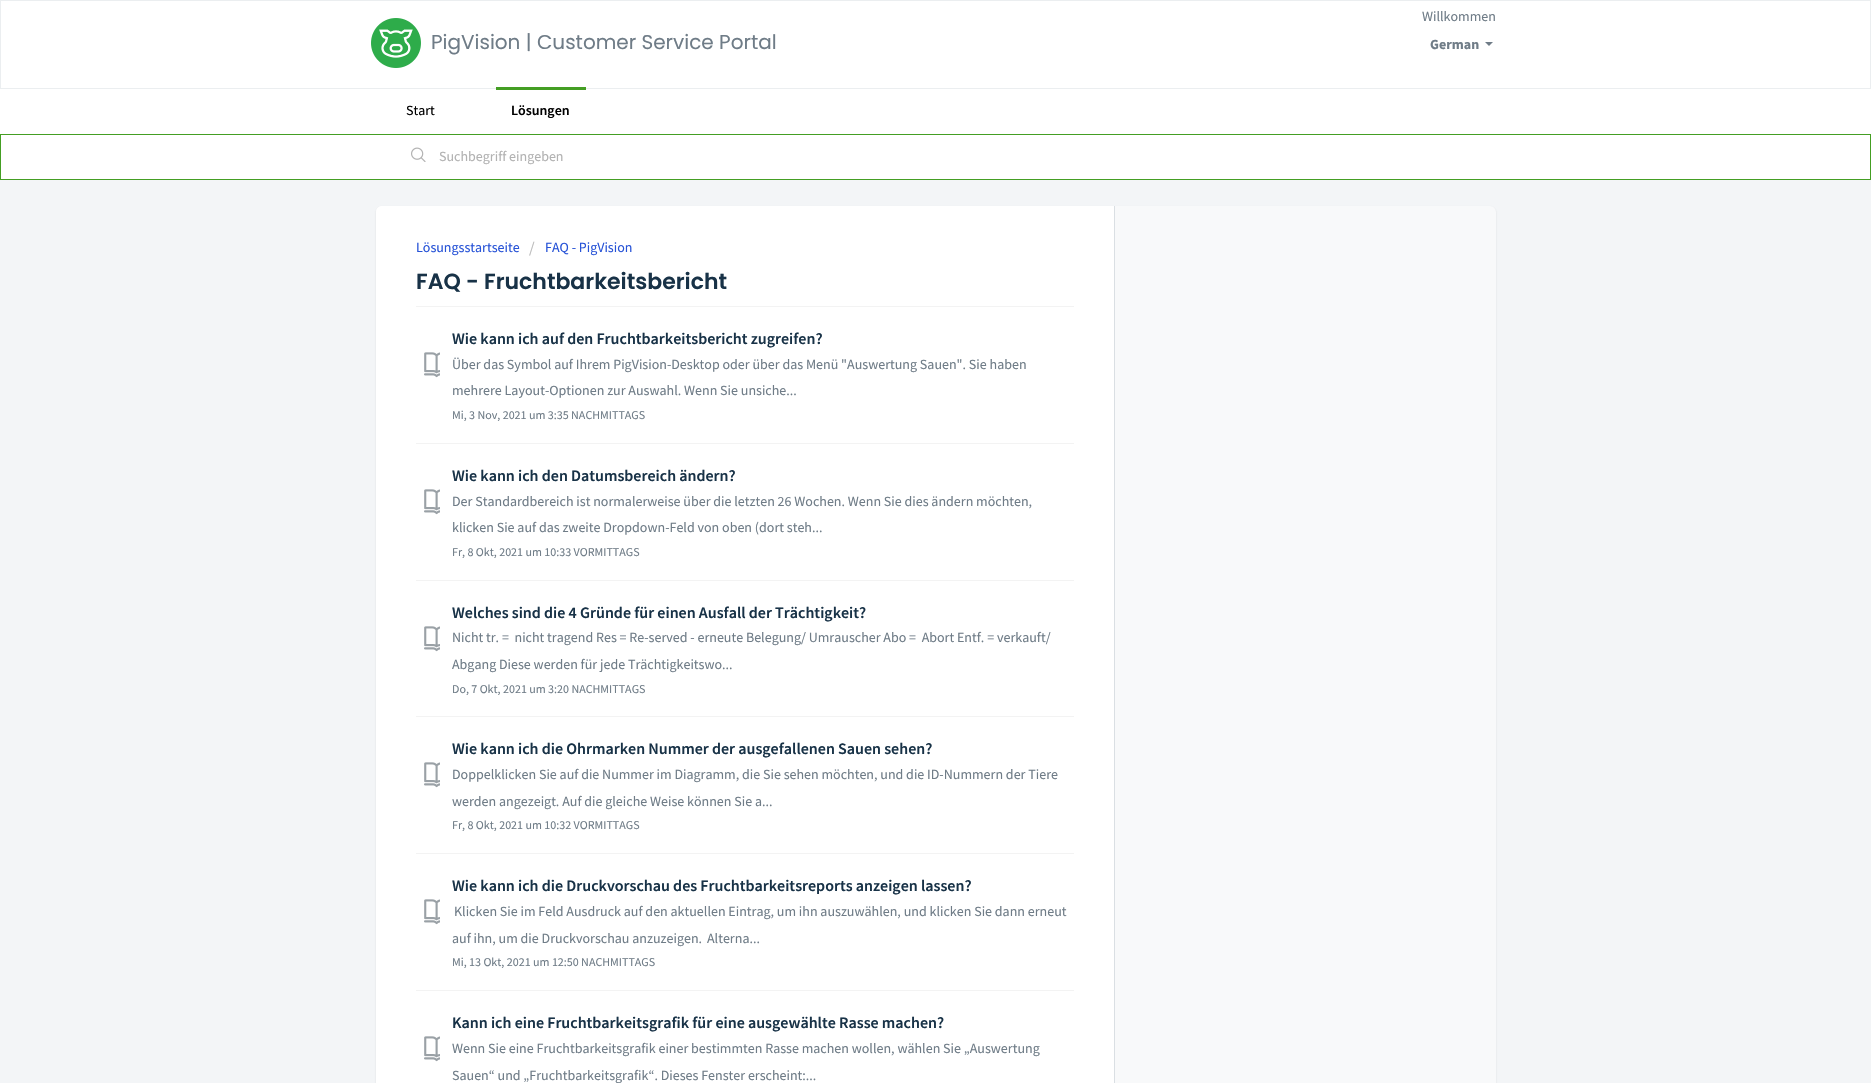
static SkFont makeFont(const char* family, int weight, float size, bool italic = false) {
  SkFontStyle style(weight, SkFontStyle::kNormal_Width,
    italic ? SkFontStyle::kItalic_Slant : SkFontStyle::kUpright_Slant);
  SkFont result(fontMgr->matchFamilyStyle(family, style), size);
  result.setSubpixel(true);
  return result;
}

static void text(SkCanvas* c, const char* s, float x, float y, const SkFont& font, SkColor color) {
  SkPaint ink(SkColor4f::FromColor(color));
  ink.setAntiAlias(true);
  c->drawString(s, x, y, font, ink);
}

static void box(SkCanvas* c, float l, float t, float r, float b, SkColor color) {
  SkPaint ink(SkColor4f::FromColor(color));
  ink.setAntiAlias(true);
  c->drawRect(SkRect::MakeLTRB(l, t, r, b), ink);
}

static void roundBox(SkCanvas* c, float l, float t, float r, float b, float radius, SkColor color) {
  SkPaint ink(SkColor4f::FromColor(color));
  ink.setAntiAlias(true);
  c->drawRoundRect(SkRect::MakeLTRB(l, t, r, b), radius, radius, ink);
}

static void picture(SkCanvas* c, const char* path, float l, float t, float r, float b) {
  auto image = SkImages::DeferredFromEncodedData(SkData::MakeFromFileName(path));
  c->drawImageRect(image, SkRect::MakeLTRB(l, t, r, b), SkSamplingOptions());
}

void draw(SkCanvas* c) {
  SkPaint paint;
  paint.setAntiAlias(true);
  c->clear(0xfff3f5f7);
  paint.setColor(0xffffffff);
  c->drawRect(SkRect::MakeLTRB(0.5f, 0.5f, 1870.5f, 88.5f), paint);
  paint.setStyle(SkPaint::kStroke_Style);
  paint.setStrokeWidth(1);
  paint.setColor(0xffebeef0);
  c->drawRect(SkRect::MakeLTRB(0.5f, 0.5f, 1870.5f, 88.5f), paint);
  picture(c, "img_01.png", 371, 18, 421, 68);
  SkFont face1 = makeFont("Poppins", 400, 20);
  text(c, "PigVision | Customer Service Portal", 431, 49, face1, 0xff6f7c87);
  SkFont face2 = makeFont("Source Sans Pro", 400, 14);
  text(c, "Willkommen", 1422, 21, face2, 0xff6f7c87);
  SkFont face3 = makeFont("Source Sans Pro", 700, 14);
  text(c, "German", 1430, 49, face3, 0xff6f7c87);
  paint.setStyle(SkPaint::kFill_Style);
  paint.setColor(0xff6f7c87);
  c->drawPath(SkPathBuilder().moveTo(1485, 42).lineTo(1493, 42).lineTo(1489, 46).close().detach(), paint);
  box(c, 0, 89, 1871, 134, 0xffffffff);
  text(c, "Start", 406, 115, face2, 0xff000000);
  box(c, 496, 87, 586, 90, 0xff449e23);
  SkFont face4 = makeFont("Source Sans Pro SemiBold", 600, 14);
  text(c, "Lösungen", 511, 115, face4, 0xff000000);
  paint.setColor(0xffffffff);
  c->drawRect(SkRect::MakeLTRB(0.5f, 134.5f, 1870.5f, 179.5f), paint);
  paint.setStyle(SkPaint::kStroke_Style);
  paint.setColor(0xff449e23);
  c->drawRect(SkRect::MakeLTRB(0.5f, 134.5f, 1870.5f, 179.5f), paint);
  picture(c, "img_02.png", 411, 147, 426, 162);
  text(c, "Suchbegriff eingeben", 439, 161, face2, 0xffb2b2b2);
  paint.setStyle(SkPaint::kFill_Style);
  paint.setColor(0x263f3f44);
  paint.setMaskFilter(SkMaskFilter::MakeBlur(kNormal_SkBlurStyle, 1));
  c->drawRoundRect(SkRect::MakeLTRB(376, 207, 1496, 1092), 6, 6, paint);
  paint.setMaskFilter(nullptr);
  roundBox(c, 376, 206, 1496, 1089, 6, 0xfff8f9fa);
  paint.setColor(0xffffffff);
  c->drawPath(SkPathBuilder().moveTo(382, 206).lineTo(1115, 206).lineTo(1115, 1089).lineTo(382, 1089).cubicTo(378.5f, 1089, 376, 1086.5f, 376, 1083).lineTo(376, 212).cubicTo(376, 208.5f, 378.5f, 206, 382, 206).close().detach(), paint);
  box(c, 1114, 206, 1115, 1083, 0xffdadfe3);
  text(c, "Lösungsstartseite", 416, 252, face2, 0xff2753d7);
  SkFont face5 = makeFont("Source Sans Pro", 400, 16);
  text(c, "/", 529, 253, face5, 0xffbbbbbb);
  text(c, "FAQ - PigVision", 545, 252, face2, 0xff2753d7);
  SkFont face6 = makeFont("Poppins", 600, 22);
  text(c, "FAQ - Fruchtbarkeitsbericht", 416, 289, face6, 0xff183247);
  box(c, 416, 306, 1074, 307, 0xfff3f3f3);
  SkFont face7 = makeFont("Source Sans Pro SemiBold", 600, 16);
  text(c, "Wie kann ich auf den Fruchtbarkeitsbericht zugreifen?", 452, 344, face7, 0xff183247);
  picture(c, "img_03.png", 424, 352, 440, 378);
  text(c, "Über das Symbol auf Ihrem PigVision-Desktop oder über das Menü \"Auswertung Sauen\". Sie haben", 452, 369, face2, 0xff6f7c87);
  text(c, "mehrere Layout-Optionen zur Auswahl. Wenn Sie unsiche...", 452, 395, face2, 0xff6f7c87);
  SkFont face8 = makeFont("Source Sans Pro", 400, 12);
  text(c, "Mi, 3 Nov, 2021 um 3:35 NACHMITTAGS", 452, 419, face8, 0xff6f7c87);
  box(c, 416, 443, 1074, 444, 0xfff3f3f3);
  text(c, "Wie kann ich den Datumsbereich ändern?", 452, 481, face7, 0xff183247);
  picture(c, "img_03.png", 424, 489, 440, 515);
  text(c, "Der Standardbereich ist normalerweise über die letzten 26 Wochen. Wenn Sie dies ändern möchten,", 452, 506, face2, 0xff6f7c87);
  text(c, "klicken Sie auf das zweite Dropdown-Feld von oben (dort steh...", 452, 532, face2, 0xff6f7c87);
  text(c, "Fr, 8 Okt, 2021 um 10:33 VORMITTAGS", 452, 556, face8, 0xff6f7c87);
  box(c, 416, 580, 1074, 581, 0xfff3f3f3);
  text(c, "Welches sind die 4 Gründe für einen Ausfall der Trächtigkeit?", 452, 618, face7, 0xff183247);
  picture(c, "img_03.png", 424, 626, 440, 652);
  text(c, "Nicht tr. =  nicht tragend Res = Re-served - erneute Belegung/ Umrauscher Abo =  Abort Entf. = verkauft/", 452, 642, face2, 0xff6f7c87);
  text(c, "Abgang Diese werden für jede Trächtigkeitswo...", 452, 669, face2, 0xff6f7c87);
  text(c, "Do, 7 Okt, 2021 um 3:20 NACHMITTAGS", 452, 693, face8, 0xff6f7c87);
  box(c, 416, 716, 1074, 717, 0xfff3f3f3);
  text(c, "Wie kann ich die Ohrmarken Nummer der ausgefallenen Sauen sehen?", 452, 754, face7, 0xff183247);
  picture(c, "img_03.png", 424, 762, 440, 788);
  text(c, "Doppelklicken Sie auf die Nummer im Diagramm, die Sie sehen möchten, und die ID-Nummern der Tiere", 452, 779, face2, 0xff6f7c87);
  text(c, "werden angezeigt. Auf die gleiche Weise können Sie a...", 452, 806, face2, 0xff6f7c87);
  text(c, "Fr, 8 Okt, 2021 um 10:32 VORMITTAGS", 452, 829, face8, 0xff6f7c87);
  box(c, 416, 853, 1074, 854, 0xfff3f3f3);
  text(c, "Wie kann ich die Druckvorschau des Fruchtbarkeitsreports anzeigen lassen?", 452, 891, face7, 0xff183247);
  picture(c, "img_03.png", 424, 899, 440, 925);
  text(c, "Klicken Sie im Feld Ausdruck auf den aktuellen Eintrag, um ihn auszuwählen, und klicken Sie dann erneut", 454, 916, face2, 0xff6f7c87);
  text(c, "auf ihn, um die Druckvorschau anzuzeigen.", 452, 943, face2, 0xff6f7c87);
  text(c, "Alterna...", 707, 943, face2, 0xff6f7c87);
  text(c, "Mi, 13 Okt, 2021 um 12:50 NACHMITTAGS", 452, 966, face8, 0xff6f7c87);
  box(c, 416, 990, 1074, 991, 0xfff3f3f3);
  text(c, "Kann ich eine Fruchtbarkeitsgrafik für eine ausgewählte Rasse machen?", 452, 1028, face7, 0xff183247);
  picture(c, "img_03.png", 424, 1036, 440, 1062);
  text(c, "Wenn Sie eine Fruchtbarkeitsgrafik einer bestimmten Rasse machen wollen, wählen Sie „Auswertung", 452, 1053, face2, 0xff6f7c87);
  text(c, "Sauen“ und „Fruchtbarkeitsgrafik“. Dieses Fenster erscheint:...", 452, 1080, face2, 0xff6f7c87);
}
